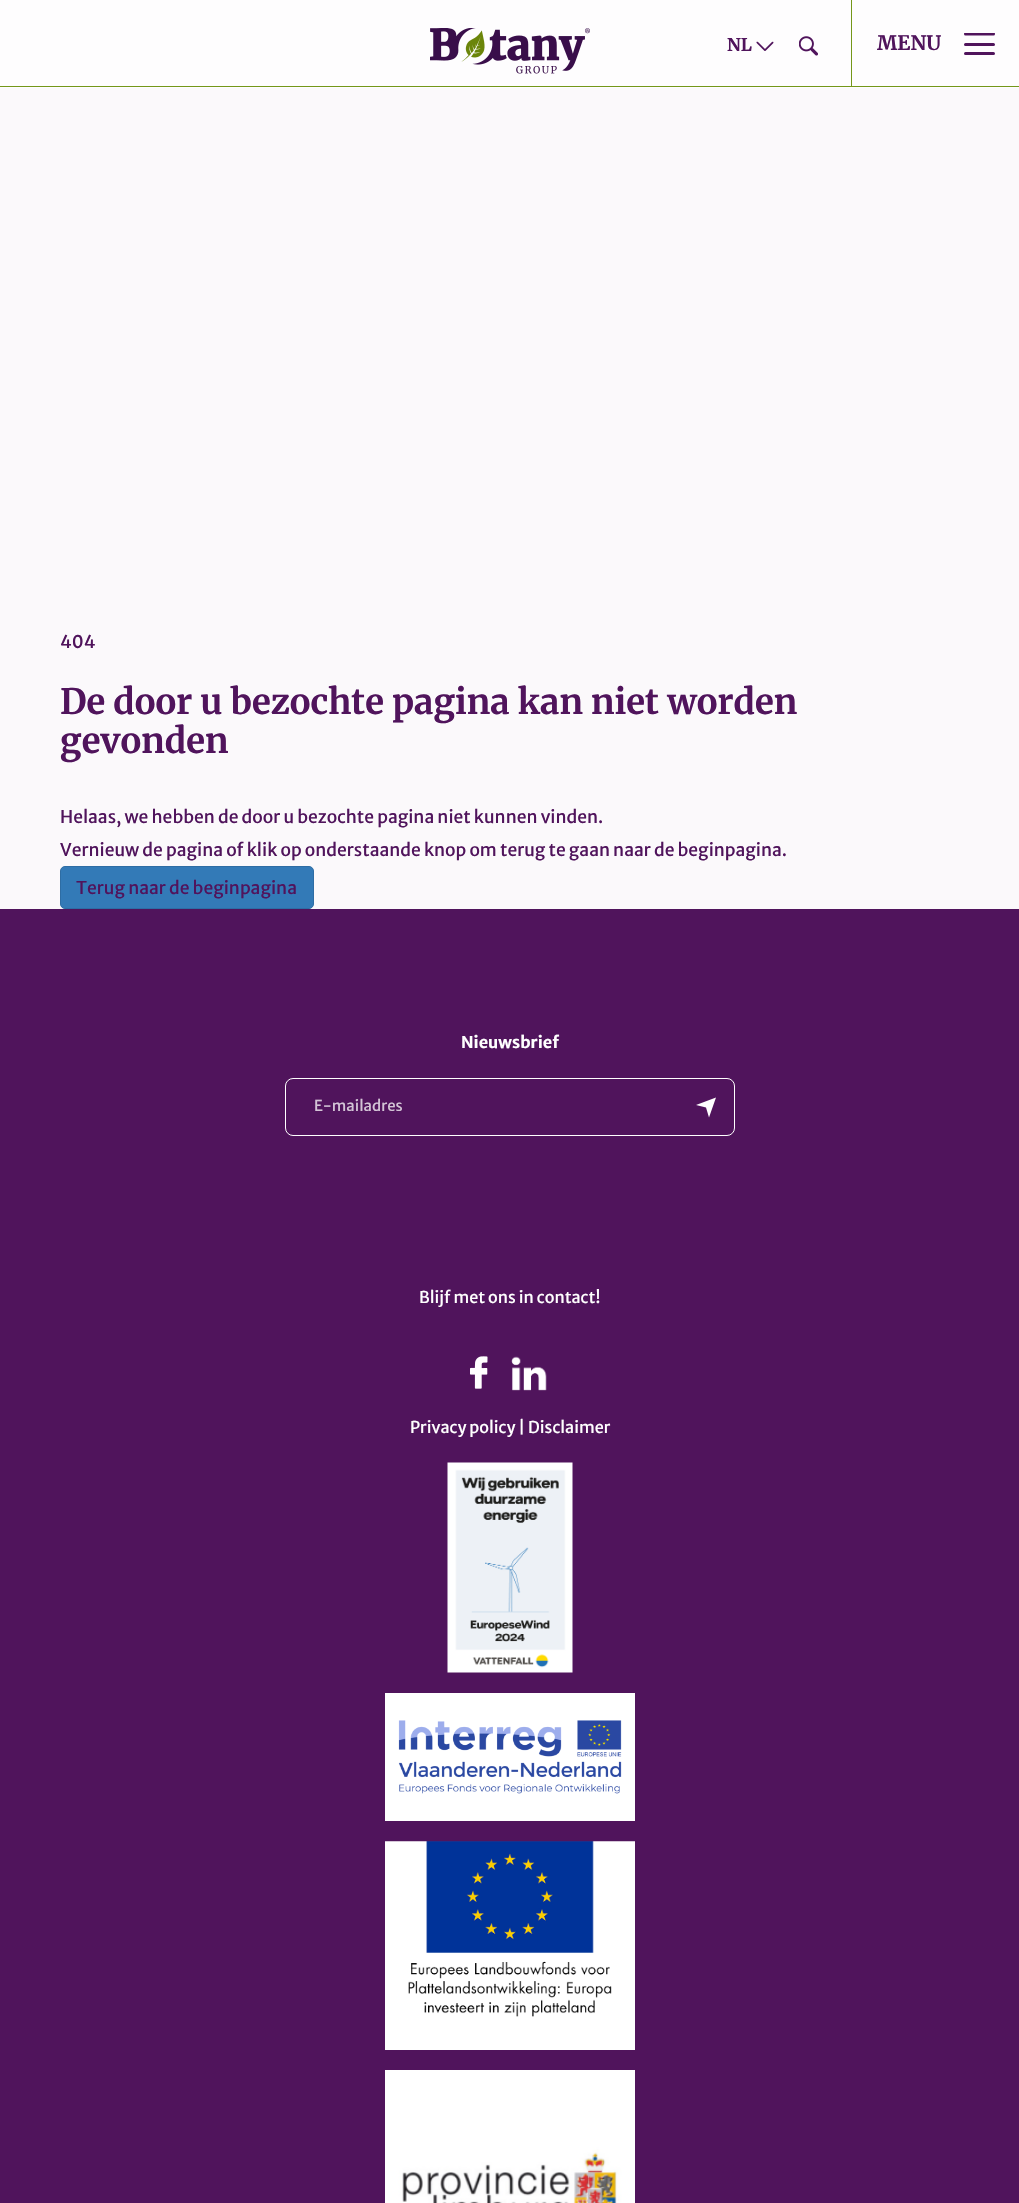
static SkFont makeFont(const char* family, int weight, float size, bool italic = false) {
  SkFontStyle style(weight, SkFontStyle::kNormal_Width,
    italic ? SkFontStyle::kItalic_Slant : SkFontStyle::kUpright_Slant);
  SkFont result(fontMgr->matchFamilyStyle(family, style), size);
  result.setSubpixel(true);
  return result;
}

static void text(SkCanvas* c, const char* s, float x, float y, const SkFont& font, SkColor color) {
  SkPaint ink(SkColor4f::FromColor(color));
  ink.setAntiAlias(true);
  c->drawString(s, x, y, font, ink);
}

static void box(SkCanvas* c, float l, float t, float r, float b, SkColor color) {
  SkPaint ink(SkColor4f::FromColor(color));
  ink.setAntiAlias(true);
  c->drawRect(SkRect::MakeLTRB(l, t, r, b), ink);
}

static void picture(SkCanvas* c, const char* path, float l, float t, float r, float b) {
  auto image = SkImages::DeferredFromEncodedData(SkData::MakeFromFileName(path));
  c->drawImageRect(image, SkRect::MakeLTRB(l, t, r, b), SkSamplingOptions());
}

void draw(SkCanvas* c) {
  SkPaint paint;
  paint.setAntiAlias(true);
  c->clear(0xfffbf9fb);
  box(c, 0, 0, 1019, 88, 0xfffefdfe);
  box(c, 0, 86, 1019, 87, 0xff749719);
  picture(c, "img_01.png", 430, 28, 590, 74);
  SkFont face1 = makeFont("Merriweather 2", 700, 17.5f);
  text(c, "NL", 727, 51, face1, 0xff50145c);
  picture(c, "img_02.png", 756, 41, 774, 51);
  picture(c, "img_03.png", 799, 36, 818, 56);
  box(c, 851, 0, 852, 86, 0xff749719);
  SkFont face2 = makeFont("Merriweather 2", 700, 20);
  text(c, "MENU", 877, 50, face2, 0xff50145c);
  c->save();
  c->clipRect(SkRect::MakeLTRB(964, 33, 995, 55));
  paint.setStyle(SkPaint::kStroke_Style);
  paint.setStrokeWidth(3);
  paint.setStrokeCap(SkPaint::kRound_Cap);
  paint.setColor(0xff50145c);
  c->drawPath(SkPathBuilder().moveTo(965.5f, 34).lineTo(993.5f, 34).detach(), paint);
  c->restore();
  c->drawPath(SkPathBuilder().moveTo(965.5f, 44.5f).lineTo(993.5f, 44.5f).moveTo(965.5f, 53.5f).lineTo(993.5f, 53.5f).detach(), paint);
  SkFont face3 = makeFont("Merriweather Sans", 400, 17.5f);
  text(c, "404", 60, 648, face3, 0xff50145c);
  SkFont face4 = makeFont("Merriweather", 700, 35);
  text(c, "De door u bezochte pagina kan niet worden", 60, 714, face4, 0xff50145c);
  text(c, "gevonden", 60, 753, face4, 0xff50145c);
  text(c, "Helaas, we hebben de door u bezochte pagina niet kunnen vinden.", 60, 823, face3, 0xff50145c);
  text(c, "Vernieuw de pagina of klik op onderstaande knop om terug te gaan naar de beginpagina.", 60, 856, face3, 0xff50145c);
  paint.setStyle(SkPaint::kFill_Style);
  paint.setColor(0xff337ab7);
  c->drawRoundRect(SkRect::MakeLTRB(60.5f, 866.5f, 313.5f, 908.5f), 4.5f, 4.5f, paint);
  paint.setStyle(SkPaint::kStroke_Style);
  paint.setStrokeWidth(1);
  paint.setStrokeCap(SkPaint::kButt_Cap);
  paint.setColor(0xff2e6da4);
  c->drawRoundRect(SkRect::MakeLTRB(60.5f, 866.5f, 313.5f, 908.5f), 4.5f, 4.5f, paint);
  text(c, "Terug naar de beginpagina", 76, 894, face3, 0xff50145c);
  box(c, 0, 909, 1019, 2203, 0xff50145c);
  SkFont face5 = makeFont("Merriweather Sans", 700, 16.25f);
  text(c, "Nieuwsbrief", 461, 1048, face5, 0xffffffff);
  paint.setColor(0xffffffff);
  c->drawRoundRect(SkRect::MakeLTRB(285.5f, 1078.5f, 734.5f, 1135.5f), 7.5f, 7.5f, paint);
  SkFont face6 = makeFont("Merriweather Sans", 400, 15);
  text(c, "E-mailadres", 314, 1111, face6, 0xffd3c4d6);
  paint.setStyle(SkPaint::kFill_Style);
  c->drawPath(SkPathBuilder().moveTo(709, 1117.5f).lineTo(706, 1107.5f).lineTo(696, 1105).lineTo(716, 1097.5f).close().detach(), paint);
  SkFont face7 = makeFont("Merriweather Sans", 400, 16.25f);
  text(c, "Blijf met ons in contact!", 419, 1303, face7, 0xffffffff);
  picture(c, "img_04.png", 470, 1356, 488, 1389);
  picture(c, "img_05.png", 511, 1356, 547, 1391);
  text(c, "Privacy policy | Disclaimer", 410, 1433, face7, 0xffffffff);
  picture(c, "img_06.png", 447, 1462, 573, 1673);
  box(c, 385, 1693, 635, 1821, 0xffffffff);
  picture(c, "img_07.png", 398, 1720, 622, 1794);
  picture(c, "img_08.png", 385, 1841, 635, 2050);
  picture(c, "img_09.png", 385, 2070, 635, 2203);
}
